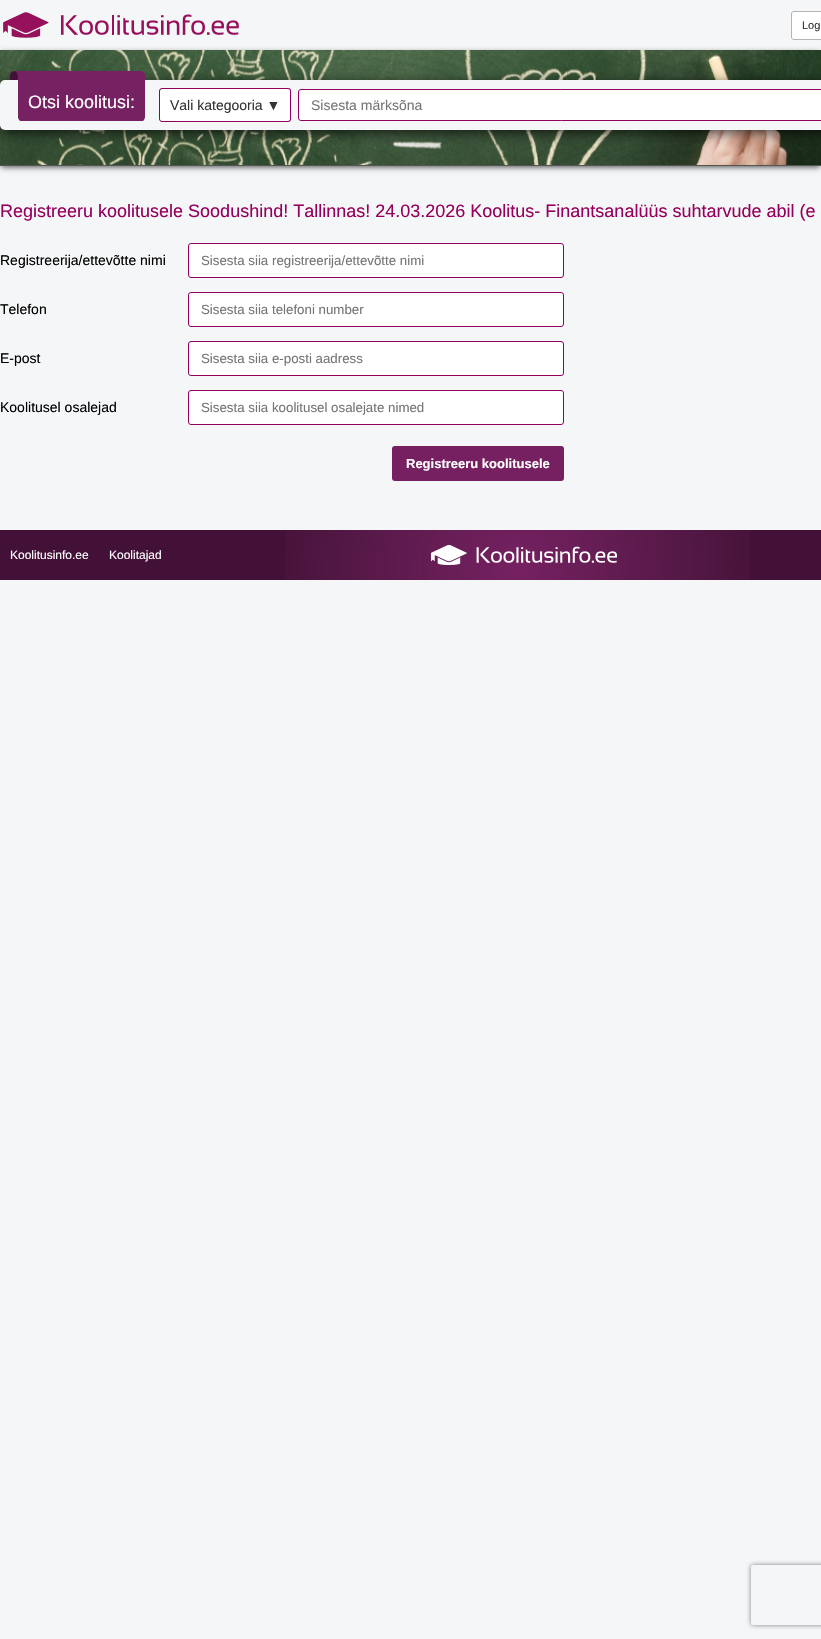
static SkFont makeFont(const char* family, int weight, float size, bool italic = false) {
  SkFontStyle style(weight, SkFontStyle::kNormal_Width,
    italic ? SkFontStyle::kItalic_Slant : SkFontStyle::kUpright_Slant);
  SkFont result(fontMgr->matchFamilyStyle(family, style), size);
  result.setSubpixel(true);
  return result;
}

static void text(SkCanvas* c, const char* s, float x, float y, const SkFont& font, SkColor color) {
  SkPaint ink(SkColor4f::FromColor(color));
  ink.setAntiAlias(true);
  c->drawString(s, x, y, font, ink);
}

static void box(SkCanvas* c, float l, float t, float r, float b, SkColor color) {
  SkPaint ink(SkColor4f::FromColor(color));
  ink.setAntiAlias(true);
  c->drawRect(SkRect::MakeLTRB(l, t, r, b), ink);
}

static void roundBox(SkCanvas* c, float l, float t, float r, float b, float radius, SkColor color) {
  SkPaint ink(SkColor4f::FromColor(color));
  ink.setAntiAlias(true);
  c->drawRoundRect(SkRect::MakeLTRB(l, t, r, b), radius, radius, ink);
}

static void picture(SkCanvas* c, const char* path, float l, float t, float r, float b) {
  auto image = SkImages::DeferredFromEncodedData(SkData::MakeFromFileName(path));
  c->drawImageRect(image, SkRect::MakeLTRB(l, t, r, b), SkSamplingOptions());
}

void draw(SkCanvas* c) {
  SkPaint paint;
  paint.setAntiAlias(true);
  c->clear(0xfff5f6f7);
  picture(c, "img_01.png", 3, 12, 239, 38);
  paint.setColor(0xffffffff);
  c->drawPath(SkPathBuilder().moveTo(794, 11.5f).lineTo(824.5f, 11.5f).lineTo(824.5f, 39.5f).lineTo(794, 39.5f).cubicTo(792.5f, 39.5f, 791.5f, 38.5f, 791.5f, 37).lineTo(791.5f, 14).cubicTo(791.5f, 12.5f, 792.5f, 11.5f, 794, 11.5f).close().detach(), paint);
  paint.setStyle(SkPaint::kStroke_Style);
  paint.setStrokeWidth(1);
  paint.setColor(0xffb4b4b4);
  c->drawPath(SkPathBuilder().moveTo(794, 11.5f).lineTo(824.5f, 11.5f).lineTo(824.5f, 39.5f).lineTo(794, 39.5f).cubicTo(792.5f, 39.5f, 791.5f, 38.5f, 791.5f, 37).lineTo(791.5f, 14).cubicTo(791.5f, 12.5f, 792.5f, 11.5f, 794, 11.5f).close().detach(), paint);
  SkFont face1 = makeFont("Liberation Sans", 400, 11);
  text(c, "Log", 802, 29, face1, 0xff343433);
  paint.setStyle(SkPaint::kFill_Style);
  paint.setColor(0xb3000000);
  paint.setMaskFilter(SkMaskFilter::MakeBlur(kNormal_SkBlurStyle, 3));
  c->drawRect(SkRect::MakeLTRB(1, 53, 820, 167), paint);
  paint.setMaskFilter(nullptr);
  picture(c, "img_02.png", 0, 50, 821, 165);
  box(c, 0, 165, 821, 166, 0xff555555);
  paint.setColor(0xcc000000);
  paint.setMaskFilter(SkMaskFilter::MakeBlur(kNormal_SkBlurStyle, 7));
  c->drawRoundRect(SkRect::MakeLTRB(1, 84, 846, 132), 4, 4, paint);
  paint.setMaskFilter(nullptr);
  roundBox(c, 0, 80, 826, 130, 5, 0xfff5f6f7);
  box(c, 23, 71, 140, 121, 0xff762162);
  picture(c, "img_03.png", 10, 71, 18, 80);
  picture(c, "img_04.png", 18, 71, 23, 121);
  SkFont face2 = makeFont("Liberation Sans", 400, 18);
  text(c, "Otsi koolitusi:", 28, 108, face2, 0xffffffff);
  picture(c, "img_05.png", 140, 71, 145, 121);
  paint.setColor(0xffffffff);
  c->drawPath(SkPathBuilder().moveTo(170, 88).lineTo(288, 88).cubicTo(289.5f, 88, 291, 89.5f, 291, 91).lineTo(291, 119).cubicTo(291, 120.5f, 289.5f, 122, 288, 122).lineTo(170, 122).close().detach(), paint);
  paint.setColor(0xff91005e);
  c->drawPath(SkPathBuilder(SkPathFillType::kEvenOdd).moveTo(170, 88).lineTo(288, 88).cubicTo(290, 88, 291, 89, 291, 91).lineTo(291, 119).cubicTo(291, 121, 290, 122, 288, 122).lineTo(170, 122).close().moveTo(170, 89).lineTo(288, 89).cubicTo(289, 89, 290, 90, 290, 91).lineTo(290, 119).cubicTo(290, 120, 289, 121, 288, 121).lineTo(170, 121).close().detach(), paint);
  SkFont face3 = makeFont("Liberation Sans", 400, 14);
  text(c, "Vali kategooria ▼", 170, 110, face3, 0xff343433);
  paint.setColor(0xffffffff);
  c->drawPath(SkPathBuilder().moveTo(162, 88).lineTo(170, 88).lineTo(170, 122).lineTo(162, 122).cubicTo(160.5f, 122, 159, 120.5f, 159, 119).lineTo(159, 91).cubicTo(159, 89.5f, 160.5f, 88, 162, 88).close().detach(), paint);
  paint.setColor(0xff91005e);
  c->drawPath(SkPathBuilder(SkPathFillType::kEvenOdd).moveTo(162, 88).lineTo(170, 88).lineTo(170, 122).lineTo(162, 122).cubicTo(160.5f, 122, 159, 120.5f, 159, 119).lineTo(159, 91).cubicTo(159, 89.5f, 160.5f, 88, 162, 88).close().moveTo(162, 89).lineTo(170, 89).lineTo(170, 121).lineTo(162, 121).cubicTo(161, 121, 160, 120, 160, 119).lineTo(160, 91).cubicTo(160, 90, 161, 89, 162, 89).close().detach(), paint);
  paint.setColor(0xffffffff);
  c->drawRoundRect(SkRect::MakeLTRB(298.5f, 89.5f, 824.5f, 120.5f), 2.5f, 2.5f, paint);
  paint.setStyle(SkPaint::kStroke_Style);
  paint.setColor(0xff91005e);
  c->drawRoundRect(SkRect::MakeLTRB(298.5f, 89.5f, 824.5f, 120.5f), 2.5f, 2.5f, paint);
  text(c, "Sisesta märksõna", 311, 110, face3, 0xff757575);
  text(c, "Registreeru koolitusele Soodushind! Tallinnas! 24.03.2026 Koolitus- Finantsanalüüs suhtarvude abil (e", 0, 217, face2, 0xff96005d);
  text(c, "Registreerija/ettevõtte nimi", 0, 265, face3, 0xff000000);
  paint.setStyle(SkPaint::kFill_Style);
  paint.setColor(0xffffffff);
  c->drawRoundRect(SkRect::MakeLTRB(188.5f, 243.5f, 563.5f, 277.5f), 2.5f, 2.5f, paint);
  paint.setStyle(SkPaint::kStroke_Style);
  paint.setColor(0xff91005e);
  c->drawRoundRect(SkRect::MakeLTRB(188.5f, 243.5f, 563.5f, 277.5f), 2.5f, 2.5f, paint);
  SkFont face4 = makeFont("Liberation Sans", 400, 13.3f);
  text(c, "Sisesta siia registreerija/ettevõtte nimi", 201, 265, face4, 0xff757575);
  text(c, "Telefon", 0, 314, face3, 0xff000000);
  paint.setStyle(SkPaint::kFill_Style);
  paint.setColor(0xffffffff);
  c->drawRoundRect(SkRect::MakeLTRB(188.5f, 292.5f, 563.5f, 326.5f), 2.5f, 2.5f, paint);
  paint.setStyle(SkPaint::kStroke_Style);
  paint.setColor(0xff91005e);
  c->drawRoundRect(SkRect::MakeLTRB(188.5f, 292.5f, 563.5f, 326.5f), 2.5f, 2.5f, paint);
  text(c, "Sisesta siia telefoni number", 201, 314, face4, 0xff757575);
  text(c, "E-post", 0, 363, face3, 0xff000000);
  paint.setStyle(SkPaint::kFill_Style);
  paint.setColor(0xffffffff);
  c->drawRoundRect(SkRect::MakeLTRB(188.5f, 341.5f, 563.5f, 375.5f), 2.5f, 2.5f, paint);
  paint.setStyle(SkPaint::kStroke_Style);
  paint.setColor(0xff91005e);
  c->drawRoundRect(SkRect::MakeLTRB(188.5f, 341.5f, 563.5f, 375.5f), 2.5f, 2.5f, paint);
  text(c, "Sisesta siia e-posti aadress", 201, 363, face4, 0xff757575);
  text(c, "Koolitusel osalejad", 0, 412, face3, 0xff000000);
  paint.setStyle(SkPaint::kFill_Style);
  paint.setColor(0xffffffff);
  c->drawRoundRect(SkRect::MakeLTRB(188.5f, 390.5f, 563.5f, 424.5f), 2.5f, 2.5f, paint);
  paint.setStyle(SkPaint::kStroke_Style);
  paint.setColor(0xff91005e);
  c->drawRoundRect(SkRect::MakeLTRB(188.5f, 390.5f, 563.5f, 424.5f), 2.5f, 2.5f, paint);
  text(c, "Sisesta siia koolitusel osalejate nimed", 201, 412, face4, 0xff757575);
  roundBox(c, 392, 446, 564, 481, 3, 0xff762061);
  SkFont face5 = makeFont("Liberation Sans", 700, 13);
  text(c, "Registreeru koolitusele", 406, 468, face5, 0xffffffff);
  box(c, 0, 530, 821, 580, 0xff431137);
  picture(c, "img_06.png", 285, 530, 750, 580);
  SkFont face6 = makeFont("Liberation Sans", 400, 12);
  text(c, "Koolitusinfo.ee", 10, 559, face6, 0xffffffff);
  text(c, "Koolitajad", 109, 559, face6, 0xffffffff);
  c->save();
  c->clipPath(SkPathBuilder(SkPathFillType::kEvenOdd).moveTo(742, 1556).lineTo(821, 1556).lineTo(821, 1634).lineTo(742, 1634).close().moveTo(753, 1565).lineTo(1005, 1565).cubicTo(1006, 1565, 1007, 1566, 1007, 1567).lineTo(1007, 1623).cubicTo(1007, 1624, 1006, 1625, 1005, 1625).lineTo(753, 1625).cubicTo(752, 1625, 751, 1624, 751, 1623).lineTo(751, 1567).cubicTo(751, 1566, 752, 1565, 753, 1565).close().detach(), true);
  paint.setStyle(SkPaint::kFill_Style);
  paint.setColor(0xff808080);
  paint.setMaskFilter(SkMaskFilter::MakeBlur(kNormal_SkBlurStyle, 2.5f));
  c->drawRoundRect(SkRect::MakeLTRB(751, 1565, 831, 1625), 2, 2, paint);
  paint.setMaskFilter(nullptr);
  c->restore();
}
